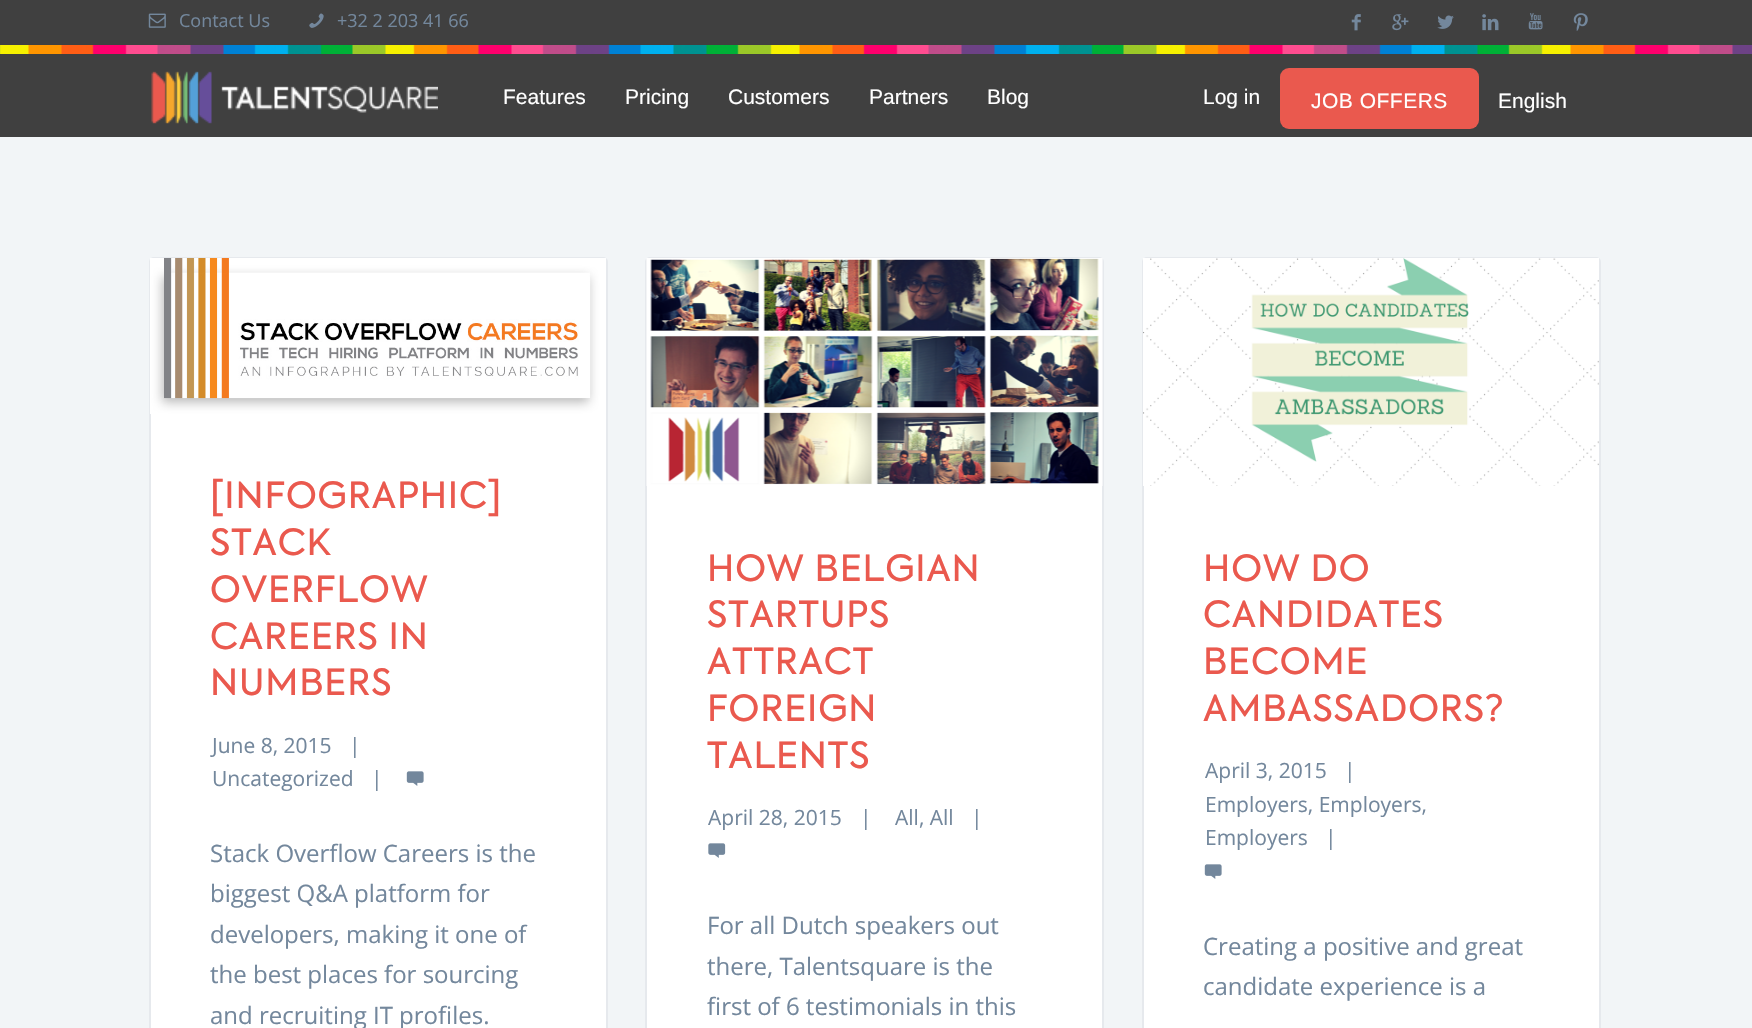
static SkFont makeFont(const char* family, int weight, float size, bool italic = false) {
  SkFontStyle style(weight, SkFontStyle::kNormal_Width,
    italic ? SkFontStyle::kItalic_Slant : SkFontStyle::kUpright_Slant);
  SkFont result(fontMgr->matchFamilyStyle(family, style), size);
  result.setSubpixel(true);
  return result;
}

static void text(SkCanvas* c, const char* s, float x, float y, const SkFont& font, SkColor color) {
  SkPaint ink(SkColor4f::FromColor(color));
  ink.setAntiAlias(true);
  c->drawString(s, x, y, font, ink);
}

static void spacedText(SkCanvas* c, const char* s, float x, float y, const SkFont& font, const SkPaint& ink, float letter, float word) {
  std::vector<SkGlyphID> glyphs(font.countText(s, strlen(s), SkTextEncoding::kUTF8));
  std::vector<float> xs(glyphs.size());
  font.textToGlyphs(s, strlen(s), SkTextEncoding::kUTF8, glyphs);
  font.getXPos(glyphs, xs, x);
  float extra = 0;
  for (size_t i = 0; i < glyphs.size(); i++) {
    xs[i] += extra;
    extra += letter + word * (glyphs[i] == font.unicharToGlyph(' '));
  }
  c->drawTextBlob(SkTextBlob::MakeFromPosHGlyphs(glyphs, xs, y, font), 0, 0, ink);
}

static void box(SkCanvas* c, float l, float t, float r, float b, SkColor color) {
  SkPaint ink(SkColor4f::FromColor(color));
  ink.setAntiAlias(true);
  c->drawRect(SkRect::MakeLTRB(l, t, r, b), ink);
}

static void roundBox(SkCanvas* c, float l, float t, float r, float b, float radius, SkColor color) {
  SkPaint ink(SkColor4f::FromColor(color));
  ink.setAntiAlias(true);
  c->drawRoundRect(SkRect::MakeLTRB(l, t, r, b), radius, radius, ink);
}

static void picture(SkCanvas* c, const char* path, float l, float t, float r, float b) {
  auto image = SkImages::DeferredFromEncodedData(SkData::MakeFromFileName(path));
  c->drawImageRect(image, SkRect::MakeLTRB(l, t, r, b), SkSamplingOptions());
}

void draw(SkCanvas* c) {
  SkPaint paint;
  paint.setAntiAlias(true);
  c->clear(0xfff2f5f7);
  box(c, 0, 0, 1752, 45, 0xff404040);
  picture(c, "img_01.png", 148, 13, 166, 28);
  SkFont face1 = makeFont("Open Sans", 400, 18);
  text(c, "Contact Us", 179, 27, face1, 0xff73879c);
  picture(c, "img_02.png", 309, 13, 324, 28);
  text(c, "+32 2 203 41 66", 337, 27, face1, 0xff73879c);
  picture(c, "img_03.png", 1351, 14, 1361, 31);
  picture(c, "img_04.png", 1392, 14, 1409, 31);
  picture(c, "img_05.png", 1437, 15, 1454, 29);
  picture(c, "img_06.png", 1482, 14, 1499, 31);
  picture(c, "img_07.png", 1528, 13, 1543, 30);
  picture(c, "img_08.png", 1573, 13, 1588, 31);
  box(c, 0, 54, 1752, 137, 0xff404040);
  picture(c, "img_09.png", 0, 45, 1752, 54);
  picture(c, "img_10.png", 151, 71, 438, 124);
  SkFont face2 = makeFont("Liberation Sans", 400, 21);
  text(c, "Features", 503, 104, face2, 0xffffffff);
  text(c, "Pricing", 625, 104, face2, 0xffffffff);
  text(c, "Customers", 728, 104, face2, 0xffffffff);
  text(c, "Partners", 869, 104, face2, 0xffffffff);
  text(c, "Blog", 987, 104, face2, 0xffffffff);
  text(c, "Log in", 1203, 104, face2, 0xffffffff);
  roundBox(c, 1280, 68, 1479, 129, 9, 0xffea594e);
  paint.setColor(0xffffffff);
  spacedText(c, "JOB OFFERS", 1311, 108, face2, paint, 0.5f, 0);
  text(c, "English", 1498, 108, face2, 0xffffffff);
  c->drawPath(SkPathBuilder().moveTo(153, 258).lineTo(603, 258).cubicTo(605, 258, 606, 259, 606, 261).lineTo(606, 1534).cubicTo(606, 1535, 605, 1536, 603, 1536).lineTo(153, 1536).cubicTo(151, 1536, 150, 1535, 150, 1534).lineTo(150, 261).cubicTo(150, 259, 151, 258, 153, 258).close().detach(), paint);
  paint.setStyle(SkPaint::kStroke_Style);
  paint.setStrokeWidth(2);
  paint.setColor(0xffe6e9ed);
  c->drawRoundRect(SkRect::MakeLTRB(150, 258, 607, 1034), 4, 4, paint);
  picture(c, "img_11.png", 150, 258, 606, 414);
  SkFont face3 = makeFont("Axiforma", 400, 36);
  paint.setStyle(SkPaint::kFill_Style);
  paint.setColor(0xffea594e);
  spacedText(c, "[INFOGRAPHIC]", 210, 508, face3, paint, 0.9f, 0);
  spacedText(c, "STACK", 210, 555, face3, paint, 0.9f, 0);
  spacedText(c, "OVERFLOW", 210, 602, face3, paint, 0.9f, 0);
  spacedText(c, "CAREERS IN", 210, 649, face3, paint, 0.9f, 0);
  spacedText(c, "NUMBERS", 210, 695, face3, paint, 0.9f, 0);
  SkFont face4 = makeFont("Open Sans", 400, 21);
  text(c, "June 8, 2015", 212, 753, face4, 0xff73879c);
  text(c, "|", 349, 753, face4, 0xff73879c);
  text(c, "Uncategorized", 212, 786, face4, 0xff73879c);
  text(c, "|", 371, 786, face4, 0xff73879c);
  picture(c, "img_12.png", 406, 771, 424, 786);
  SkFont face5 = makeFont("Open Sans", 400, 24);
  text(c, "Stack Overflow Careers is the", 210, 862, face5, 0xff73879c);
  text(c, "biggest Q&A platform for", 210, 902, face5, 0xff73879c);
  text(c, "developers, making it one of", 210, 943, face5, 0xff73879c);
  text(c, "the best places for sourcing", 210, 983, face5, 0xff73879c);
  text(c, "and recruiting IT profiles.", 210, 1024, face5, 0xff73879c);
  paint.setColor(0xffffffff);
  c->drawPath(SkPathBuilder().moveTo(650, 258).lineTo(1100, 258).cubicTo(1101, 258, 1102, 259, 1102, 261).lineTo(1102, 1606).cubicTo(1102, 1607, 1101, 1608, 1100, 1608).lineTo(650, 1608).cubicTo(648, 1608, 646, 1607, 646, 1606).lineTo(646, 261).cubicTo(646, 259, 648, 258, 650, 258).close().detach(), paint);
  paint.setStyle(SkPaint::kStroke_Style);
  paint.setColor(0xffe6e9ed);
  c->drawRoundRect(SkRect::MakeLTRB(646, 258, 1103, 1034), 4, 4, paint);
  picture(c, "img_13.png", 646, 258, 1103, 486);
  paint.setStyle(SkPaint::kFill_Style);
  paint.setColor(0xffea594e);
  spacedText(c, "HOW BELGIAN", 707, 581, face3, paint, 0.9f, 0);
  spacedText(c, "STARTUPS", 707, 627, face3, paint, 0.9f, 0);
  spacedText(c, "ATTRACT", 707, 674, face3, paint, 0.9f, 0);
  spacedText(c, "FOREIGN", 707, 721, face3, paint, 0.9f, 0);
  spacedText(c, "TALENTS", 707, 768, face3, paint, 0.9f, 0);
  text(c, "April 28, 2015", 708, 825, face4, 0xff73879c);
  text(c, "|", 860, 825, face4, 0xff73879c);
  text(c, "All, All", 895, 825, face4, 0xff73879c);
  text(c, "|", 971, 825, face4, 0xff73879c);
  picture(c, "img_14.png", 708, 843, 726, 858);
  text(c, "For all Dutch speakers out", 707, 934, face5, 0xff73879c);
  text(c, "there, Talentsquare is the", 707, 975, face5, 0xff73879c);
  text(c, "first of 6 testimonials in this", 707, 1015, face5, 0xff73879c);
  paint.setColor(0xffffffff);
  c->drawPath(SkPathBuilder().moveTo(1146, 258).lineTo(1596, 258).cubicTo(1598, 258, 1599, 259, 1599, 261).lineTo(1599, 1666).cubicTo(1599, 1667, 1598, 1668, 1596, 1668).lineTo(1146, 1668).cubicTo(1144, 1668, 1143, 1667, 1143, 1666).lineTo(1143, 261).cubicTo(1143, 259, 1144, 258, 1146, 258).close().detach(), paint);
  paint.setStyle(SkPaint::kStroke_Style);
  paint.setColor(0xffe6e9ed);
  c->drawRoundRect(SkRect::MakeLTRB(1143, 258, 1600, 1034), 4, 4, paint);
  picture(c, "img_15.png", 1143, 258, 1599, 486);
  paint.setStyle(SkPaint::kFill_Style);
  paint.setColor(0xffea594e);
  spacedText(c, "HOW DO", 1203, 581, face3, paint, 0.9f, 0);
  spacedText(c, "CANDIDATES", 1203, 627, face3, paint, 0.9f, 0);
  spacedText(c, "BECOME", 1203, 674, face3, paint, 0.9f, 0);
  spacedText(c, "AMBASSADORS?", 1203, 721, face3, paint, 0.9f, 0);
  text(c, "April 3, 2015", 1205, 778, face4, 0xff73879c);
  text(c, "|", 1344, 778, face4, 0xff73879c);
  text(c, "Employers, Employers,", 1205, 812, face4, 0xff73879c);
  text(c, "Employers", 1205, 845, face4, 0xff73879c);
  text(c, "|", 1325, 845, face4, 0xff73879c);
  picture(c, "img_12.png", 1204, 864, 1222, 879);
  text(c, "Creating a positive and great", 1203, 955, face5, 0xff73879c);
  text(c, "candidate experience is a", 1203, 995, face5, 0xff73879c);
}
